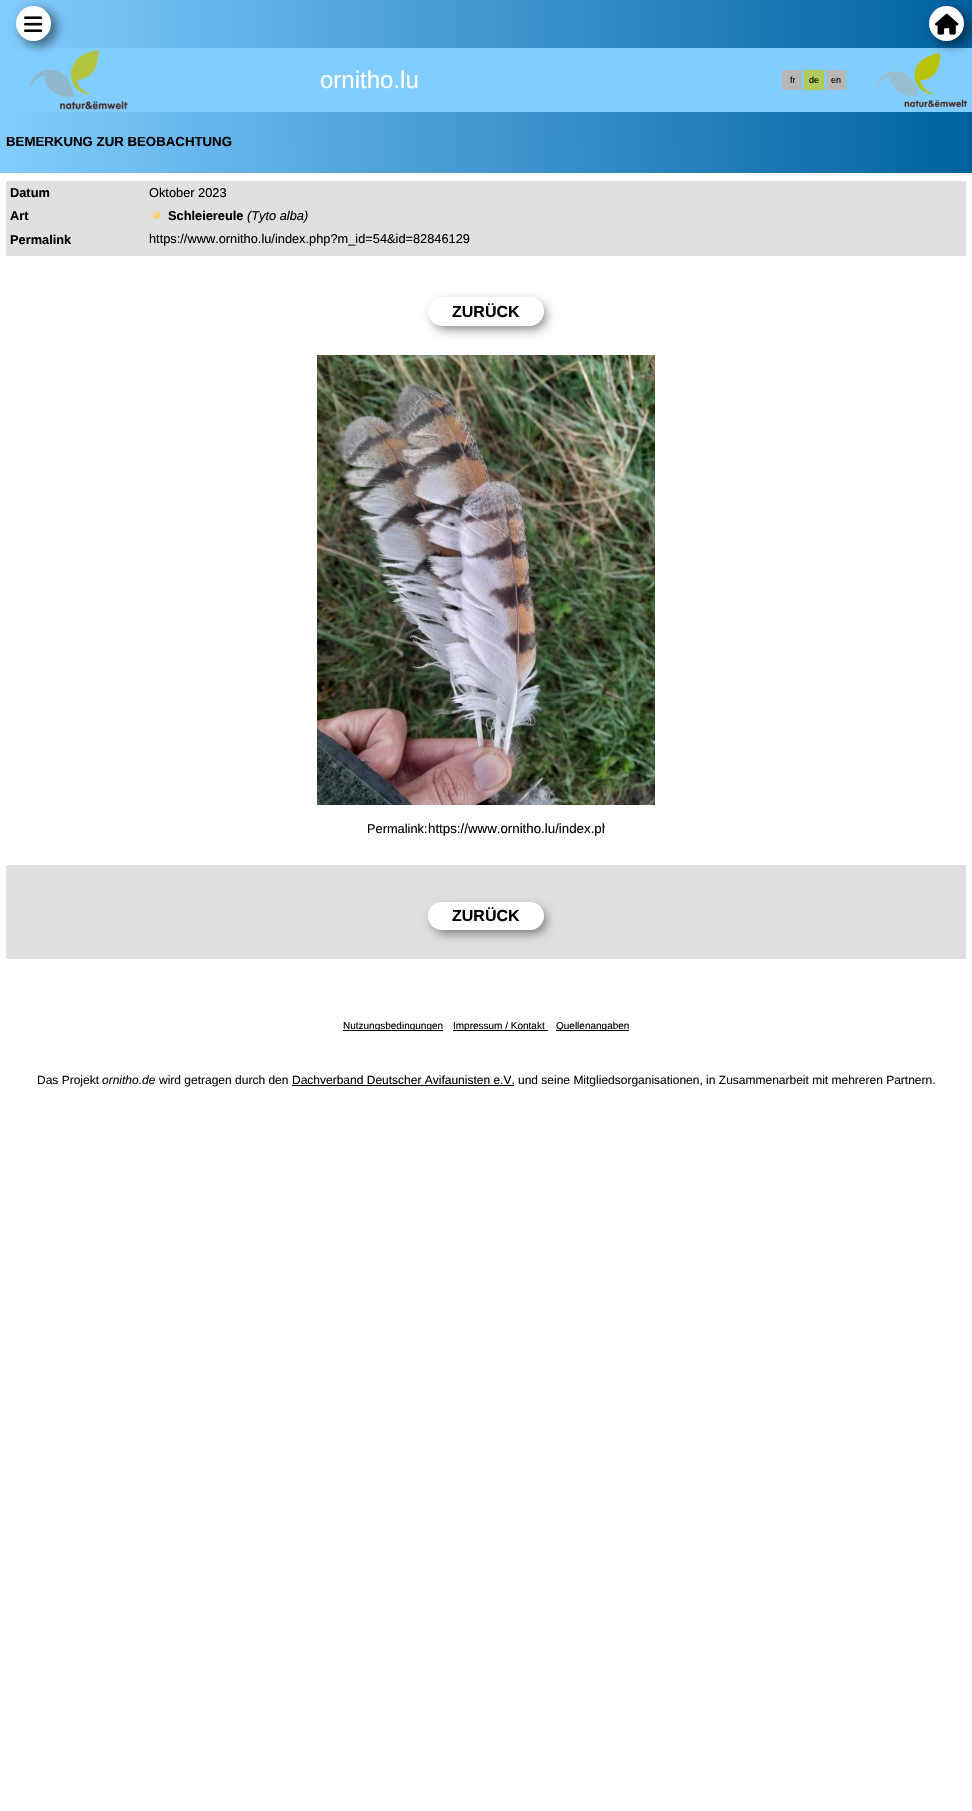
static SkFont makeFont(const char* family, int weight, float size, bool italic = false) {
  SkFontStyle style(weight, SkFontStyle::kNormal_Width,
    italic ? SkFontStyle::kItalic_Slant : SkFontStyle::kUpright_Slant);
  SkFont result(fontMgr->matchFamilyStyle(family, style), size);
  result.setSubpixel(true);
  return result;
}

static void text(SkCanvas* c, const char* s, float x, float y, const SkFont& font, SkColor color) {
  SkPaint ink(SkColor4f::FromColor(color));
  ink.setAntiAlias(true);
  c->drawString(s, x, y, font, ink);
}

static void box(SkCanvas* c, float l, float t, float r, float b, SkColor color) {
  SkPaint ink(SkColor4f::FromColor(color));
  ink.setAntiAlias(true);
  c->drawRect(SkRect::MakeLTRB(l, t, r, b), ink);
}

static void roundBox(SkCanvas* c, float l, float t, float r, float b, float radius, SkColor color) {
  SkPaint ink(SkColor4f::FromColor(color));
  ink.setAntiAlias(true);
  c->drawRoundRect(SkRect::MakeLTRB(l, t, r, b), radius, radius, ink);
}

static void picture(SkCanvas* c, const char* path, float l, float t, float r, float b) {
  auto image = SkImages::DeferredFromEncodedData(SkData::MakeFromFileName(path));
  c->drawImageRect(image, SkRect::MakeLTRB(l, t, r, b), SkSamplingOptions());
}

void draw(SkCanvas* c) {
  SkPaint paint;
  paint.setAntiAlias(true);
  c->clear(0xffffffff);
  {
    const SkColor colors[] = {0xff82cdff, 0xff0061a1};
    const float stops[] = {0, 1};
    const SkPoint ends[] = {{0, 24}, {972, 24}};
    paint.setShader(SkGradientShader::MakeLinear(ends, colors, stops, 2, SkTileMode::kClamp));
    paint.setAlpha(255);
  }
  c->drawRect(SkRect::MakeLTRB(0, 0, 972, 48), paint);
  box(c, 0, 48, 972, 112, 0xff82cdff);
  picture(c, "img_03.png", 29, 49, 128, 110);
  paint.setShader(nullptr);
  paint.setColor(0x80000000);
  paint.setMaskFilter(SkMaskFilter::MakeBlur(kNormal_SkBlurStyle, 5.5f));
  c->drawRoundRect(SkRect::MakeLTRB(20, 9, 57, 46), 18.5f, 18.5f, paint);
  paint.setMaskFilter(nullptr);
  paint.setColor(0xffffffff);
  c->drawCircle(33.5f, 23.5f, 17.5f, paint);
  picture(c, "img_01.png", 24, 16, 43, 32);
  picture(c, "img_04.png", 876, 53, 967, 107);
  paint.setColor(0x80000000);
  paint.setMaskFilter(SkMaskFilter::MakeBlur(kNormal_SkBlurStyle, 5.5f));
  c->drawRoundRect(SkRect::MakeLTRB(933, 9, 970, 46), 18.5f, 18.5f, paint);
  paint.setMaskFilter(nullptr);
  paint.setColor(0xffffffff);
  c->drawCircle(946.5f, 23.5f, 17.5f, paint);
  picture(c, "img_02.png", 935, 13, 959, 35);
  SkFont face1 = makeFont("Liberation Sans", 400, 24);
  text(c, "ornitho.lu", 320, 88, face1, 0xffffffff);
  box(c, 782, 70, 802, 90, 0xffb7b7b7);
  SkFont face2 = makeFont("Liberation Sans", 400, 9);
  text(c, "fr", 790, 83, face2, 0xff000000);
  box(c, 804, 70, 824, 90, 0xffb4ca5b);
  text(c, "de", 809, 83, face2, 0xff000000);
  box(c, 826, 70, 846, 90, 0xffb7b7b7);
  text(c, "en", 831, 83, face2, 0xff000000);
  {
    const SkColor colors[] = {0xff82cdff, 0xff0061a1};
    const float stops[] = {0, 1};
    const SkPoint ends[] = {{0, 143}, {972, 142}};
    paint.setShader(SkGradientShader::MakeLinear(ends, colors, stops, 2, SkTileMode::kClamp));
    paint.setAlpha(255);
  }
  c->drawRect(SkRect::MakeLTRB(0, 112, 972, 173), paint);
  SkFont face3 = makeFont("Liberation Sans", 700, 13.25f);
  text(c, "BEMERKUNG ZUR BEOBACHTUNG", 6, 146, face3, 0xff000000);
  box(c, 6, 181, 966, 959, 0xffe0e0e0);
  SkFont face4 = makeFont("Liberation Sans", 700, 12.8f);
  text(c, "Datum", 10, 197, face4, 0xff000000);
  SkFont face5 = makeFont("Liberation Sans", 400, 12.8f);
  text(c, "Oktober 2023", 149, 197, face5, 0xff000000);
  text(c, "Art", 10, 220, face4, 0xff000000);
  picture(c, "img_05.png", 152, 211, 160, 219);
  picture(c, "img_06.png", 153, 212, 158, 216);
  text(c, "Schleiereule", 168, 220, face4, 0xff000000);
  SkFont face6 = makeFont("Liberation Sans", 400, 12.8f, true);
  text(c, "(Tyto alba)", 247, 220, face6, 0xff000000);
  text(c, "Permalink", 10, 244, face4, 0xff000000);
  text(c, "https://www.ornitho.lu/index.php?m_id=54&id=82846129", 149, 243, face5, 0xff000000);
  box(c, 6, 256, 966, 865, 0xffffffff);
  paint.setShader(nullptr);
  paint.setColor(0x80000000);
  paint.setMaskFilter(SkMaskFilter::MakeBlur(kNormal_SkBlurStyle, 5.5f));
  c->drawRoundRect(SkRect::MakeLTRB(433, 303, 546, 329), 13, 13, paint);
  paint.setMaskFilter(nullptr);
  roundBox(c, 428, 297, 544, 326, 14.5f, 0xffffffff);
  SkFont face7 = makeFont("Liberation Sans", 700, 16);
  text(c, "ZURÜCK", 452, 317, face7, 0xff000000);
  picture(c, "img_07.png", 317, 355, 655, 805);
  text(c, "Permalink:", 367, 833, face5, 0xff000000);
  c->save();
  c->clipRect(SkRect::MakeLTRB(428, 821, 605, 836));
  SkFont face8 = makeFont("Liberation Sans", 400, 13.3f);
  text(c, "https://www.ornitho.lu/index.ph", 428, 833, face8, 0xff000000);
  c->restore();
  paint.setMaskFilter(SkMaskFilter::MakeBlur(kNormal_SkBlurStyle, 5.5f));
  c->drawRoundRect(SkRect::MakeLTRB(433, 908, 546, 933), 12.5f, 12.5f, paint);
  paint.setMaskFilter(nullptr);
  roundBox(c, 428, 902, 544, 930, 14, 0xffffffff);
  text(c, "ZURÜCK", 452, 921, face7, 0xff000000);
  box(c, 343, 1030, 443, 1031, 0xff000000);
  SkFont face9 = makeFont("Liberation Sans", 400, 10);
  text(c, "Nutzungsbedingungen", 343, 1029, face9, 0xff000000);
  box(c, 453, 1030, 548, 1031, 0xff000000);
  text(c, "Impressum / Kontakt", 453, 1029, face9, 0xff000000);
  box(c, 556, 1030, 629, 1031, 0xff000000);
  text(c, "Quellenangaben", 556, 1029, face9, 0xff000000);
  SkFont face10 = makeFont("Liberation Sans", 400, 12);
  text(c, "Das Projekt", 37, 1084, face10, 0xff090909);
  SkFont face11 = makeFont("Liberation Sans", 400, 12, true);
  text(c, "ornitho.de", 102, 1084, face11, 0xff090909);
  text(c, "wird getragen durch den", 159, 1084, face10, 0xff090909);
  text(c, "Dachverband Deutscher Avifaunisten e.V.", 292, 1084, face10, 0xff000000);
  box(c, 292, 1085, 514, 1086, 0xff000000);
  text(c, "und seine Mitgliedsorganisationen, in Zusammenarbeit mit mehreren Partnern.", 518, 1084, face10, 0xff090909);
}
